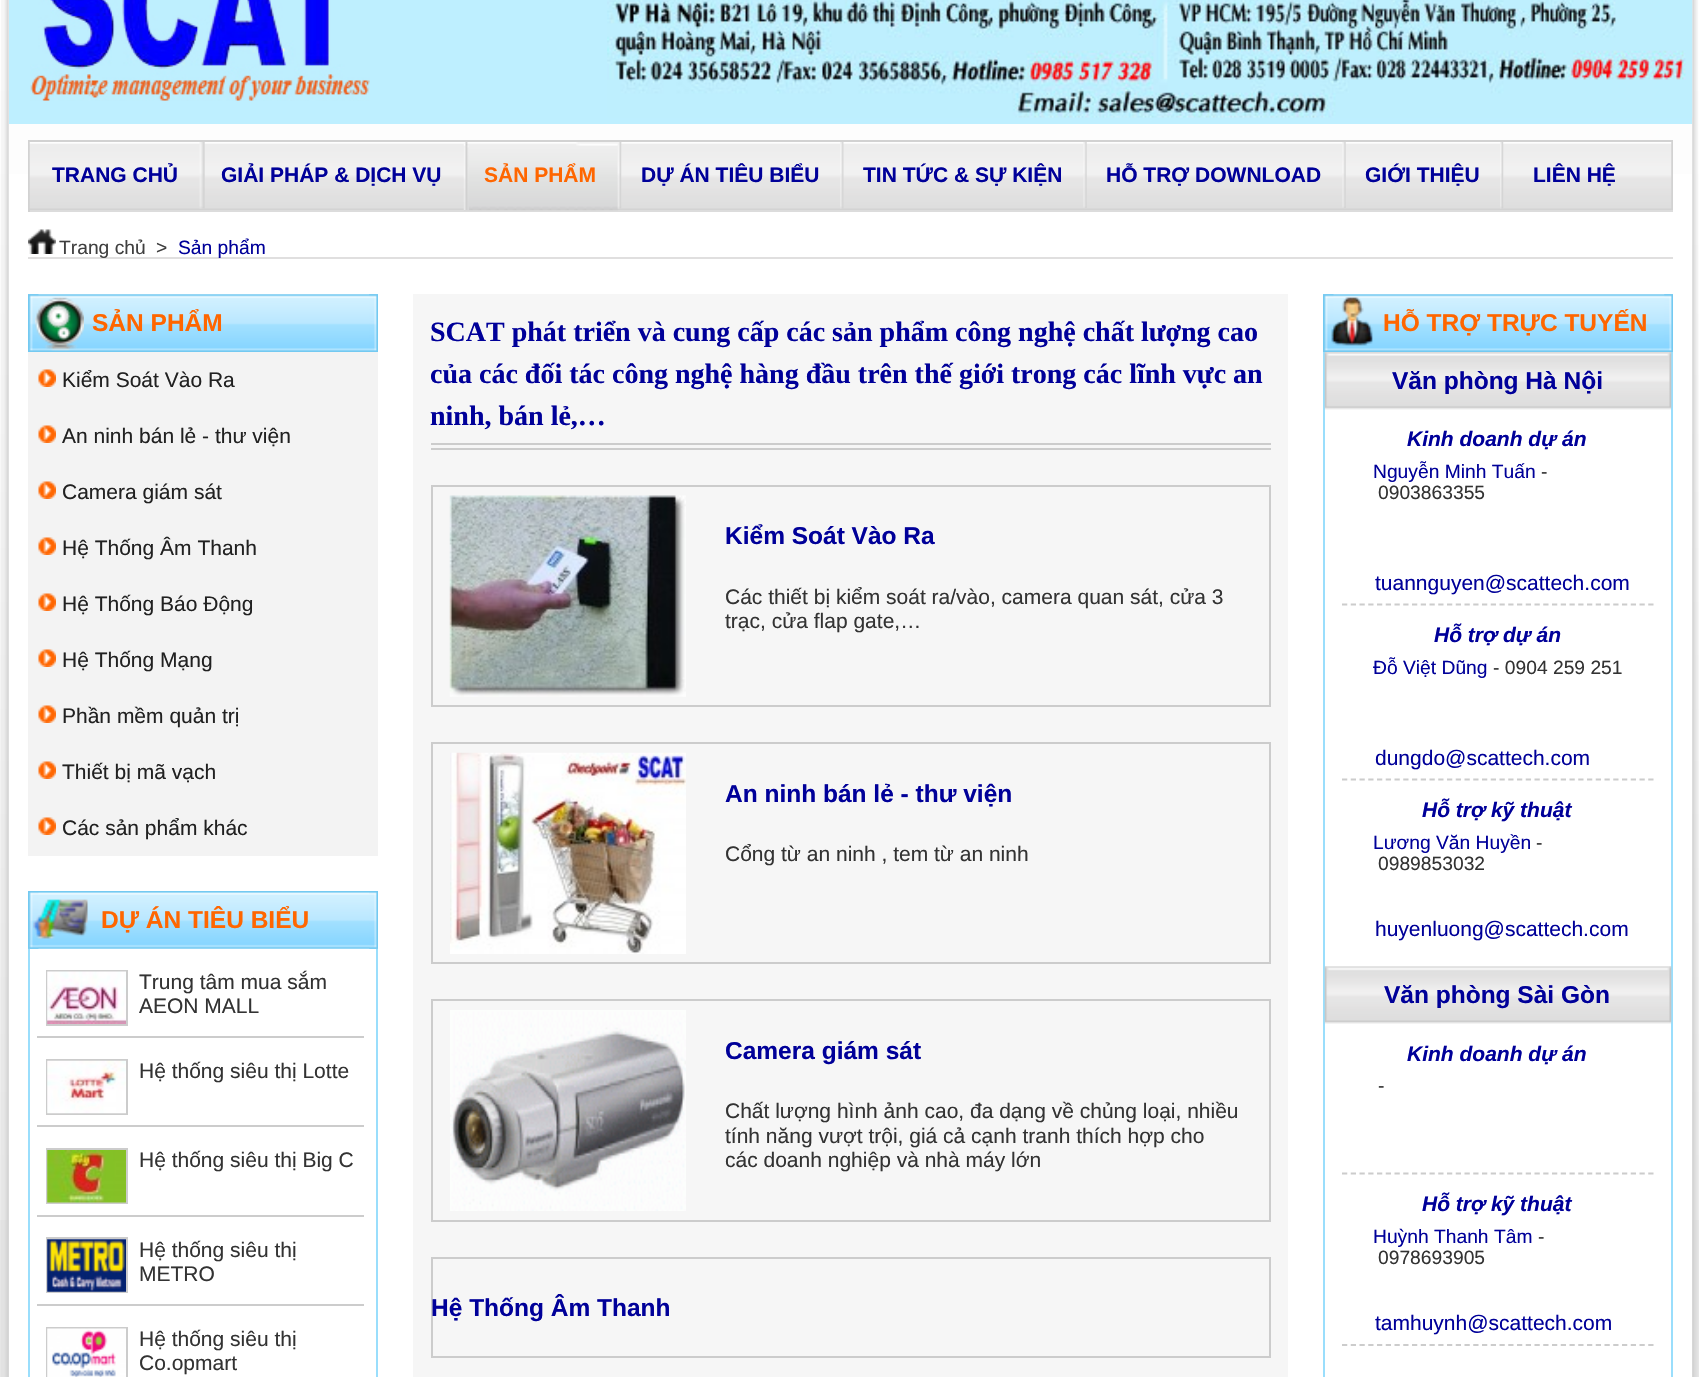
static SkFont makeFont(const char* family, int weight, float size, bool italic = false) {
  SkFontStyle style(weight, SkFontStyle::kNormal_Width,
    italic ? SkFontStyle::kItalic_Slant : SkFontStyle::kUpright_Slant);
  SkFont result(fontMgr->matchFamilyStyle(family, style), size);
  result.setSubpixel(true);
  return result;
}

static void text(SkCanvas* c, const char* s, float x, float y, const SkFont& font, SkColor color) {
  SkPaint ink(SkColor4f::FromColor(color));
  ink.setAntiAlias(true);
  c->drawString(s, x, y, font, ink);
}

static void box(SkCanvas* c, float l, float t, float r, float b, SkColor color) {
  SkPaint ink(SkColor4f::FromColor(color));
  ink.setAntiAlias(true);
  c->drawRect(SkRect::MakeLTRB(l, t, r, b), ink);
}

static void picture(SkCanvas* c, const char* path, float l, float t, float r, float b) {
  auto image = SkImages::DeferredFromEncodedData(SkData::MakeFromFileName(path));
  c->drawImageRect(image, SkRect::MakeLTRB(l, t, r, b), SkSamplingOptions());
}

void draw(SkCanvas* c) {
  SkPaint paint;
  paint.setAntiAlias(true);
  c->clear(0xffe6e6e6);
  picture(c, "img_01.png", 0, 0, 1699, 1220);
  picture(c, "img_02.png", 1, 0, 9, 1377);
  picture(c, "img_03.png", 1692, 0, 1698, 1377);
  box(c, 9, 0, 1692, 124, 0xffbeefff);
  picture(c, "img_04.png", 30, 0, 370, 101);
  picture(c, "img_05.png", 607, 0, 1693, 118);
  box(c, 9, 174, 1692, 1377, 0xffffffff);
  box(c, 28, 140, 1673, 142, 0xffd2d2d2);
  box(c, 1671, 140, 1673, 212, 0xffd2d2d2);
  box(c, 28, 210, 1673, 212, 0xffdcdcdc);
  box(c, 28, 140, 30, 212, 0xffd2d2d2);
  picture(c, "img_06.png", 29, 142, 1672, 210);
  SkFont face1 = makeFont("Liberation Sans", 700, 21);
  text(c, "TRANG CHỦ", 52, 182, face1, 0xff000099);
  picture(c, "img_07.png", 199, 142, 205, 209);
  text(c, "GIẢI PHÁP & DỊCH VỤ", 221, 182, face1, 0xff000099);
  picture(c, "img_10.png", 464, 142, 618, 211);
  picture(c, "img_08.png", 463, 142, 469, 210);
  picture(c, "img_09.png", 576, 142, 622, 146);
  text(c, "SẢN PHẨM", 484, 182, face1, 0xffff6600);
  picture(c, "img_11.png", 617, 142, 622, 209);
  text(c, "DỰ ÁN TIÊU BIỂU", 641, 182, face1, 0xff000099);
  picture(c, "img_12.png", 840, 142, 844, 209);
  text(c, "TIN TỨC & SỰ KIỆN", 863, 182, face1, 0xff000099);
  picture(c, "img_13.png", 1083, 142, 1087, 208);
  text(c, "HỖ TRỢ DOWNLOAD", 1106, 182, face1, 0xff000099);
  picture(c, "img_13.png", 1342, 142, 1346, 208);
  text(c, "GIỚI THIỆU", 1365, 182, face1, 0xff000099);
  picture(c, "img_14.png", 1500, 142, 1504, 209);
  text(c, "LIÊN HỆ", 1533, 182, face1, 0xff000099);
  box(c, 28, 257, 1673, 259, 0xffe0dfdf);
  picture(c, "img_15.png", 28, 229, 56, 254);
  SkFont face2 = makeFont("Liberation Sans", 400, 19.25f);
  text(c, "Trang chủ", 59, 254, face2, 0xff3f3f3f);
  text(c, ">", 156, 254, face2, 0xff3f3f3f);
  text(c, "Sản phẩm", 178, 254, face2, 0xff000099);
  picture(c, "img_16.png", 28, 294, 378, 352);
  picture(c, "img_17.png", 28, 294, 39, 351);
  picture(c, "img_18.png", 369, 294, 378, 351);
  picture(c, "img_19.png", 35, 297, 84, 351);
  SkFont face3 = makeFont("Liberation Sans", 700, 24.5f);
  text(c, "SẢN PHẨM", 92, 331, face3, 0xffff6600);
  box(c, 28, 352, 378, 856, 0xfff3f3f3);
  picture(c, "img_20.png", 38, 369, 56, 387);
  SkFont face4 = makeFont("Liberation Sans", 400, 21);
  text(c, "Kiểm Soát Vào Ra", 62, 387, face4, 0xff212121);
  picture(c, "img_20.png", 38, 425, 56, 443);
  text(c, "An ninh bán lẻ - thư viện", 62, 443, face4, 0xff212121);
  picture(c, "img_20.png", 38, 481, 56, 499);
  text(c, "Camera giám sát", 62, 499, face4, 0xff212121);
  picture(c, "img_20.png", 38, 537, 56, 555);
  text(c, "Hệ Thống Âm Thanh", 62, 555, face4, 0xff212121);
  picture(c, "img_20.png", 38, 593, 56, 611);
  text(c, "Hệ Thống Báo Động", 62, 611, face4, 0xff212121);
  picture(c, "img_20.png", 38, 649, 56, 667);
  text(c, "Hệ Thống Mạng", 62, 667, face4, 0xff212121);
  picture(c, "img_20.png", 38, 705, 56, 723);
  text(c, "Phần mềm quản trị", 62, 723, face4, 0xff212121);
  picture(c, "img_20.png", 38, 761, 56, 779);
  text(c, "Thiết bị mã vạch", 62, 779, face4, 0xff212121);
  picture(c, "img_20.png", 38, 817, 56, 835);
  text(c, "Các sản phẩm khác", 62, 835, face4, 0xff212121);
  picture(c, "img_21.png", 28, 891, 378, 949);
  picture(c, "img_22.png", 28, 892, 39, 949);
  picture(c, "img_23.png", 369, 892, 378, 949);
  picture(c, "img_24.png", 33, 899, 88, 939);
  text(c, "DỰ ÁN TIÊU BIỂU", 101, 928, face3, 0xffff6600);
  box(c, 376, 949, 378, 1377, 0xff9adefc);
  box(c, 28, 949, 30, 1377, 0xff9adefc);
  paint.setStyle(SkPaint::kStroke_Style);
  paint.setStrokeWidth(2);
  paint.setColor(0xffcccccc);
  c->drawRect(SkRect::MakeLTRB(47, 971, 127, 1025), paint);
  picture(c, "img_25.png", 47, 971, 126, 1024);
  text(c, "Trung tâm mua sắm", 139, 989, face4, 0xff333333);
  text(c, "AEON MALL", 139, 1013, face4, 0xff333333);
  box(c, 37, 1036, 364, 1038, 0xffcccccc);
  c->drawRect(SkRect::MakeLTRB(47, 1060, 127, 1114), paint);
  picture(c, "img_26.png", 47, 1060, 126, 1114);
  text(c, "Hệ thống siêu thị Lotte", 139, 1078, face4, 0xff333333);
  box(c, 37, 1125, 364, 1127, 0xffcccccc);
  c->drawRect(SkRect::MakeLTRB(47, 1149, 127, 1203), paint);
  picture(c, "img_27.png", 47, 1150, 126, 1203);
  text(c, "Hệ thống siêu thị Big C", 139, 1167, face4, 0xff333333);
  box(c, 37, 1215, 364, 1217, 0xffcccccc);
  c->drawRect(SkRect::MakeLTRB(47, 1238, 127, 1292), paint);
  picture(c, "img_28.png", 47, 1239, 126, 1292);
  text(c, "Hệ thống siêu thị", 139, 1257, face4, 0xff333333);
  text(c, "METRO", 139, 1281, face4, 0xff333333);
  box(c, 37, 1304, 364, 1306, 0xffcccccc);
  c->drawRect(SkRect::MakeLTRB(47, 1328, 127, 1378), paint);
  picture(c, "img_29.png", 47, 1328, 126, 1377);
  text(c, "Hệ thống siêu thị", 139, 1346, face4, 0xff333333);
  text(c, "Co.opmart", 139, 1370, face4, 0xff333333);
  box(c, 413, 294, 1288, 1377, 0xfff6f6f6);
  SkFont face5 = makeFont("Liberation Serif", 700, 28);
  text(c, "SCAT phát triển và cung cấp các sản phẩm công nghệ chất lượng cao", 430, 341, face5, 0xff000099);
  text(c, "của các đối tác công nghệ hàng đầu trên thế giới trong các lĩnh vực an", 430, 383, face5, 0xff000099);
  text(c, "ninh, bán lẻ,…", 430, 425, face5, 0xff000099);
  box(c, 431, 443, 1271, 445, 0xffcccccc);
  box(c, 431, 448, 1271, 450, 0xffcccccc);
  c->drawRect(SkRect::MakeLTRB(432, 486, 1270, 706), paint);
  picture(c, "img_30.png", 449, 495, 686, 697);
  text(c, "Kiểm Soát Vào Ra", 725, 544, face3, 0xff000099);
  text(c, "Các thiết bị kiểm soát ra/vào, camera quan sát, cửa 3", 725, 604, face4, 0xff333333);
  text(c, "trạc, cửa flap gate,…", 725, 628, face4, 0xff333333);
  c->drawRect(SkRect::MakeLTRB(432, 743, 1270, 963), paint);
  picture(c, "img_31.png", 450, 752, 686, 954);
  text(c, "An ninh bán lẻ - thư viện", 725, 802, face3, 0xff000099);
  text(c, "Cổng từ an ninh , tem từ an ninh", 725, 861, face4, 0xff333333);
  c->drawRect(SkRect::MakeLTRB(432, 1000, 1270, 1221), paint);
  picture(c, "img_32.png", 450, 1010, 686, 1211);
  text(c, "Camera giám sát", 725, 1059, face3, 0xff000099);
  text(c, "Chất lượng hình ảnh cao, đa dạng về chủng loại, nhiều", 725, 1118, face4, 0xff333333);
  text(c, "tính năng vượt trội, giá cả cạnh tranh thích hợp cho", 725, 1143, face4, 0xff333333);
  text(c, "các doanh nghiệp và nhà máy lớn", 725, 1167, face4, 0xff333333);
  c->drawRect(SkRect::MakeLTRB(432, 1258, 1270, 1357), paint);
  text(c, "Hệ Thống Âm Thanh", 431, 1316, face3, 0xff000099);
  picture(c, "img_16.png", 1323, 294, 1673, 352);
  picture(c, "img_17.png", 1323, 294, 1334, 351);
  picture(c, "img_18.png", 1664, 294, 1673, 351);
  picture(c, "img_33.png", 1331, 297, 1373, 346);
  text(c, "HỖ TRỢ TRỰC TUYẾN", 1383, 331, face3, 0xffff6600);
  box(c, 1671, 352, 1673, 1377, 0xff9adefc);
  box(c, 1323, 352, 1325, 1377, 0xff9adefc);
  picture(c, "img_34.png", 1324, 352, 1672, 410);
  text(c, "Văn phòng Hà Nội", 1392, 389, face3, 0xff000099);
  SkFont face6 = makeFont("Liberation Sans", 700, 21, true);
  text(c, "Kinh doanh dự án", 1407, 446, face6, 0xff000099);
  text(c, "Nguyễn Minh Tuấn", 1373, 478, face2, 0xff000099);
  text(c, "-", 1541, 478, face2, 0xff333333);
  text(c, "0903863355", 1378, 499, face2, 0xff333333);
  text(c, "tuannguyen@scattech.com", 1375, 590, face4, 0xff000099);
  paint.setStrokeWidth(1.8f);
  paint.setPathEffect(SkDashPathEffect::Make({{5.25f, 3.5f}}, 0));
  c->drawPath(SkPathBuilder().moveTo(1342, 604.5f).lineTo(1654, 604.5f).detach(), paint);
  paint.setPathEffect(nullptr);
  text(c, "Hỗ trợ dự án", 1434, 642, face6, 0xff000099);
  text(c, "Đỗ Việt Dũng", 1373, 674, face2, 0xff000099);
  text(c, "- 0904 259 251", 1493, 674, face2, 0xff333333);
  text(c, "dungdo@scattech.com", 1375, 765, face4, 0xff000099);
  paint.setPathEffect(SkDashPathEffect::Make({{5.25f, 3.5f}}, 0));
  c->drawPath(SkPathBuilder().moveTo(1342, 779.5f).lineTo(1654, 779.5f).detach(), paint);
  paint.setPathEffect(nullptr);
  text(c, "Hỗ trợ kỹ thuật", 1422, 817, face6, 0xff000099);
  text(c, "Lương Văn Huyền", 1373, 849, face2, 0xff000099);
  text(c, "-", 1536, 849, face2, 0xff333333);
  text(c, "0989853032", 1378, 870, face2, 0xff333333);
  text(c, "huyenluong@scattech.com", 1375, 936, face4, 0xff000099);
  picture(c, "img_35.png", 1324, 966, 1672, 1024);
  text(c, "Văn phòng Sài Gòn", 1384, 1003, face3, 0xff000099);
  text(c, "Kinh doanh dự án", 1407, 1061, face6, 0xff000099);
  text(c, "-", 1378, 1092, face2, 0xff333333);
  paint.setPathEffect(SkDashPathEffect::Make({{5.25f, 3.5f}}, 0));
  c->drawPath(SkPathBuilder().moveTo(1342, 1173.5f).lineTo(1654, 1173.5f).detach(), paint);
  paint.setPathEffect(nullptr);
  text(c, "Hỗ trợ kỹ thuật", 1422, 1211, face6, 0xff000099);
  text(c, "Huỳnh Thanh Tâm", 1373, 1243, face2, 0xff000099);
  text(c, "-", 1538, 1243, face2, 0xff333333);
  text(c, "0978693905", 1378, 1264, face2, 0xff333333);
  text(c, "tamhuynh@scattech.com", 1375, 1330, face4, 0xff000099);
  paint.setPathEffect(SkDashPathEffect::Make({{5.25f, 3.5f}}, 0));
  c->drawPath(SkPathBuilder().moveTo(1342, 1345).lineTo(1654, 1345).detach(), paint);
  paint.setPathEffect(nullptr);
}
